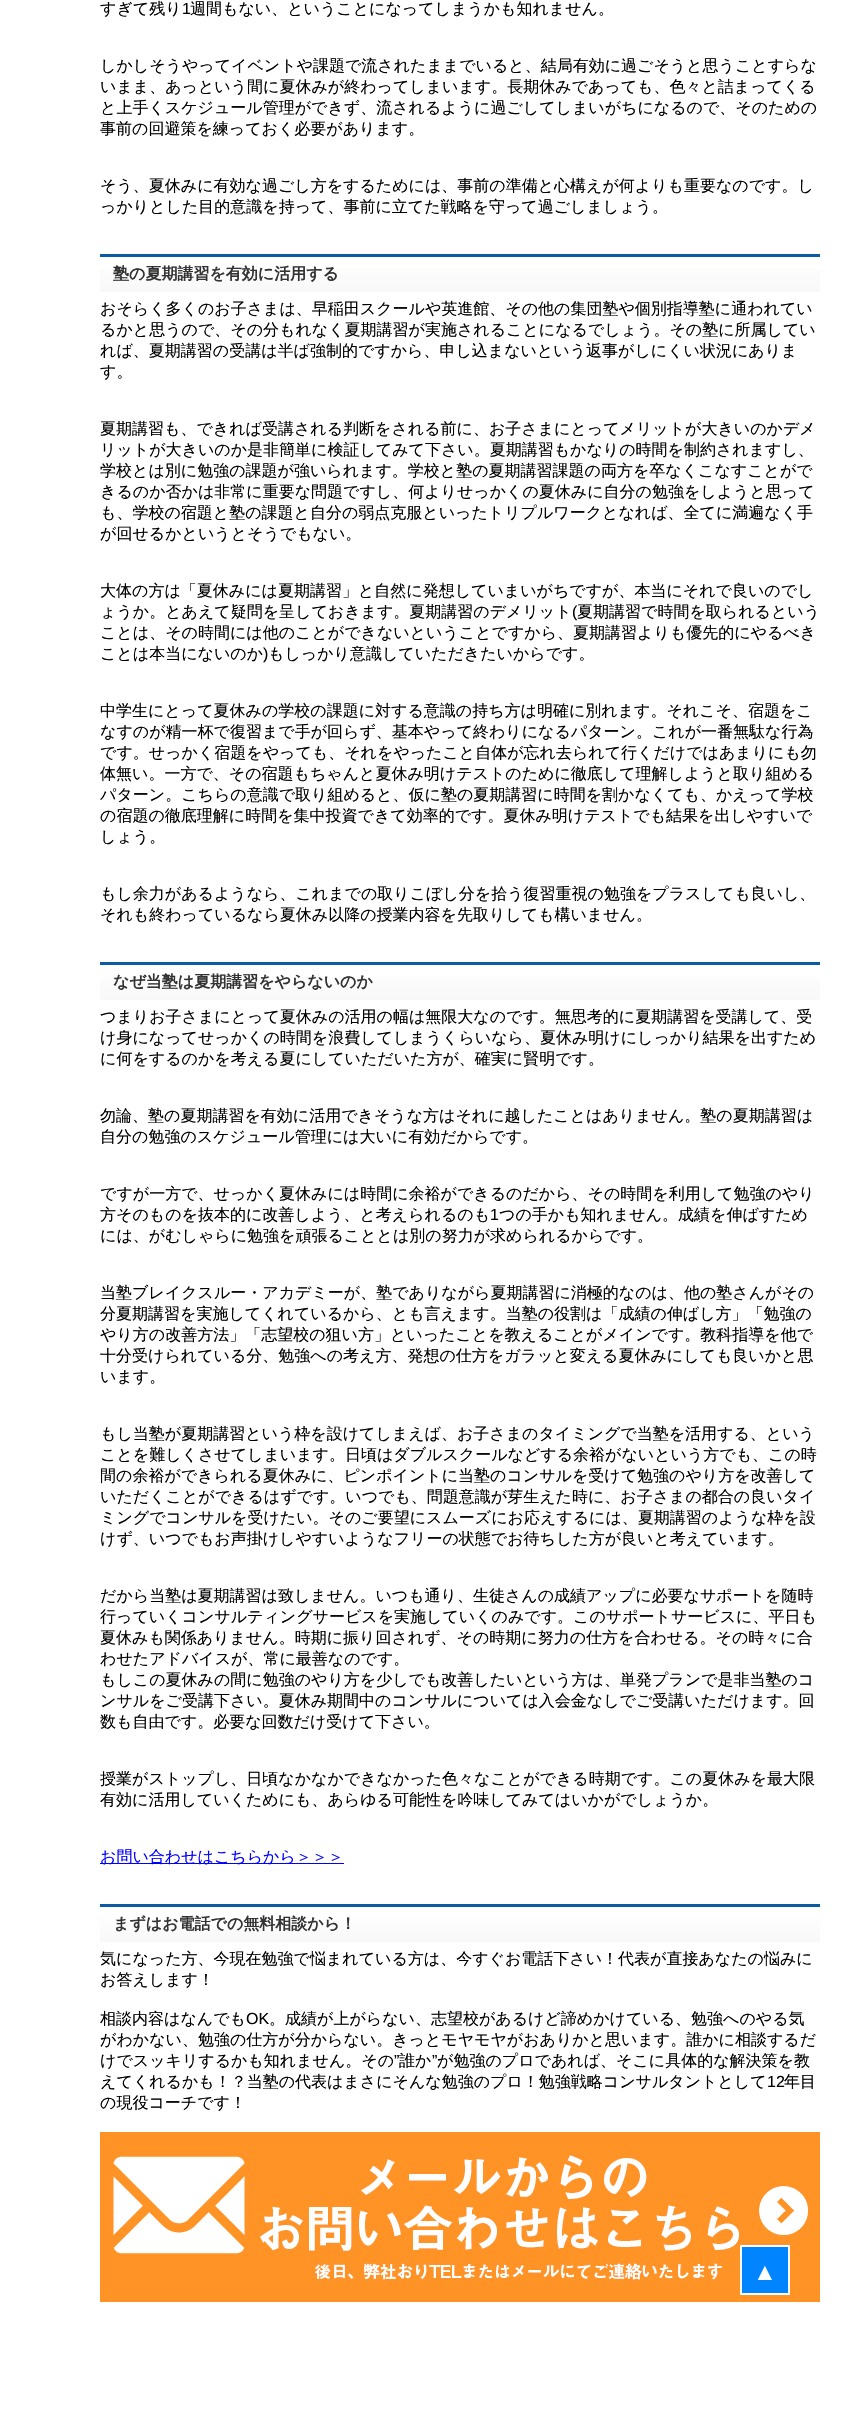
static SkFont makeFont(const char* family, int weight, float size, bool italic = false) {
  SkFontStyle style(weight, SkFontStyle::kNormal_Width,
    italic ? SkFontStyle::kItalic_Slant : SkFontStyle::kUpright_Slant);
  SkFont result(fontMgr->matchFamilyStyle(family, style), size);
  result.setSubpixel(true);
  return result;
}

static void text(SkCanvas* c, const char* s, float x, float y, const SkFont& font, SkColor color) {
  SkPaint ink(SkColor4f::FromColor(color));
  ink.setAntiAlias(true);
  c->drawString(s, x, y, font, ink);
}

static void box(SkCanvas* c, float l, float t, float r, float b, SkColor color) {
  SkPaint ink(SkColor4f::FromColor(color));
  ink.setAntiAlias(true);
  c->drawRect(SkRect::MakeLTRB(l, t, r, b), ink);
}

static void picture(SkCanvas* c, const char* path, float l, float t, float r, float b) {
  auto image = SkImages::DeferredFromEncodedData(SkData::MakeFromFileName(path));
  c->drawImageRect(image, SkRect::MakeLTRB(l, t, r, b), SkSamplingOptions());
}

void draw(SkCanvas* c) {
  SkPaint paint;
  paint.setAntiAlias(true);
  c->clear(0xffffffff);
  SkFont face1 = makeFont("WenQuanYi Zen Hei", 500, 16);
  text(c, "すぎて残り", 100, 14, face1, 0xff000000);
  SkFont face2 = makeFont("Liberation Sans", 400, 16);
  text(c, "1", 182, 14, face2, 0xff000000);
  text(c, "週間もない、ということになってしまうかも知れません。", 190, 14, face1, 0xff000000);
  text(c, "しかしそうやってイベントや課題で流されたままでいると、結局有効に過ごそうと思うことすらな", 100, 71, face1, 0xff000000);
  text(c, "いまま、あっという間に夏休みが終わってしまいます。長期休みであっても、色々と詰まってくる", 100, 92, face1, 0xff000000);
  text(c, "と上手くスケジュール管理ができず、流されるように過ごしてしまいがちになるので、そのための", 100, 113, face1, 0xff000000);
  text(c, "事前の回避策を練っておく必要があります。", 100, 134, face1, 0xff000000);
  text(c, "そう、夏休みに有効な過ごし方をするためには、事前の準備と心構えが何よりも重要なのです。し", 100, 191, face1, 0xff000000);
  text(c, "っかりとした目的意識を持って、事前に立てた戦略を守って過ごしましょう。", 100, 212, face1, 0xff000000);
  {
    const SkColor colors[] = {0xffffffff, 0xfff8f8f8};
    const float stops[] = {0, 0.97f};
    const SkPoint ends[] = {{460, 257}, {460, 292}};
    paint.setShader(SkGradientShader::MakeLinear(ends, colors, stops, 2, SkTileMode::kClamp));
    paint.setAlpha(255);
  }
  c->drawRect(SkRect::MakeLTRB(100, 269, 820, 292), paint);
  box(c, 100, 254, 820, 257, 0xff0b5ba5);
  SkFont face3 = makeFont("WenQuanYi Zen Hei", 700, 16);
  text(c, "塾の夏期講習を有効に活用する", 113, 279, face3, 0xff333333);
  text(c, "おそらく多くのお子さまは、早稲田スクールや英進館、その他の集団塾や個別指導塾に通われてい", 100, 314, face1, 0xff000000);
  text(c, "るかと思うので、その分もれなく夏期講習が実施されることになるでしょう。その塾に所属してい", 100, 335, face1, 0xff000000);
  text(c, "れば、夏期講習の受講は半ば強制的ですから、申し込まないという返事がしにくい状況にありま", 100, 356, face1, 0xff000000);
  text(c, "す。", 100, 377, face1, 0xff000000);
  text(c, "夏期講習も、できれば受講される判断をされる前に、お子さまにとってメリットが大きいのかデメ", 100, 434, face1, 0xff000000);
  text(c, "リットが大きいのか是非簡単に検証してみて下さい。夏期講習もかなりの時間を制約されますし、", 100, 455, face1, 0xff000000);
  text(c, "学校とは別に勉強の課題が強いられます。学校と塾の夏期講習課題の両方を卒なくこなすことがで", 100, 476, face1, 0xff000000);
  text(c, "きるのか否かは非常に重要な問題ですし、何よりせっかくの夏休みに自分の勉強をしようと思って", 100, 497, face1, 0xff000000);
  text(c, "も、学校の宿題と塾の課題と自分の弱点克服といったトリプルワークとなれば、全てに満遍なく手", 100, 518, face1, 0xff000000);
  text(c, "が回せるかというとそうでもない。", 100, 539, face1, 0xff000000);
  text(c, "大体の方は「夏休みには夏期講習」と自然に発想していまいがちですが、本当にそれで良いのでし", 100, 596, face1, 0xff000000);
  text(c, "ょうか。とあえて疑問を呈しておきます。夏期講習のデメリット", 100, 617, face1, 0xff000000);
  text(c, "(", 572, 617, face2, 0xff000000);
  text(c, "夏期講習で時間を取られるという", 577, 617, face1, 0xff000000);
  text(c, "ことは、その時間には他のことができないということですから、夏期講習よりも優先的にやるべき", 100, 638, face1, 0xff000000);
  text(c, "ことは本当にないのか", 100, 659, face1, 0xff000000);
  text(c, ")", 263, 659, face2, 0xff000000);
  text(c, "もしっかり意識していただきたいからです。", 268, 659, face1, 0xff000000);
  text(c, "中学生にとって夏休みの学校の課題に対する意識の持ち方は明確に別れます。それこそ、宿題をこ", 100, 716, face1, 0xff000000);
  text(c, "なすのが精一杯で復習まで手が回らず、基本やって終わりになるパターン。これが一番無駄な行為", 100, 737, face1, 0xff000000);
  text(c, "です。せっかく宿題をやっても、それをやったこと自体が忘れ去られて行くだけではあまりにも勿", 100, 758, face1, 0xff000000);
  text(c, "体無い。一方で、その宿題もちゃんと夏休み明けテストのために徹底して理解しようと取り組める", 100, 779, face1, 0xff000000);
  text(c, "パターン。こちらの意識で取り組めると、仮に塾の夏期講習に時間を割かなくても、かえって学校", 100, 800, face1, 0xff000000);
  text(c, "の宿題の徹底理解に時間を集中投資できて効率的です。夏休み明けテストでも結果を出しやすいで", 100, 821, face1, 0xff000000);
  text(c, "しょう。", 100, 842, face1, 0xff000000);
  text(c, "もし余力があるようなら、これまでの取りこぼし分を拾う復習重視の勉強をプラスしても良いし、", 100, 899, face1, 0xff000000);
  text(c, "それも終わっているなら夏休み以降の授業内容を先取りしても構いません。", 100, 920, face1, 0xff000000);
  {
    const SkColor colors[] = {0xffffffff, 0xfff8f8f8};
    const float stops[] = {0, 0.97f};
    const SkPoint ends[] = {{460, 965}, {460, 1000}};
    paint.setShader(SkGradientShader::MakeLinear(ends, colors, stops, 2, SkTileMode::kClamp));
    paint.setAlpha(255);
  }
  c->drawRect(SkRect::MakeLTRB(100, 977, 820, 1000), paint);
  box(c, 100, 962, 820, 965, 0xff0b5ba5);
  text(c, "なぜ当塾は夏期講習をやらないのか", 113, 987, face3, 0xff333333);
  text(c, "つまりお子さまにとって夏休みの活用の幅は無限大なのです。無思考的に夏期講習を受講して、受", 100, 1022, face1, 0xff000000);
  text(c, "け身になってせっかくの時間を浪費してしまうくらいなら、夏休み明けにしっかり結果を出すため", 100, 1043, face1, 0xff000000);
  text(c, "に何をするのかを考える夏にしていただいた方が、確実に賢明です。", 100, 1064, face1, 0xff000000);
  text(c, "勿論、塾の夏期講習を有効に活用できそうな方はそれに越したことはありません。塾の夏期講習は", 100, 1121, face1, 0xff000000);
  text(c, "自分の勉強のスケジュール管理には大いに有効だからです。", 100, 1142, face1, 0xff000000);
  text(c, "ですが一方で、せっかく夏休みには時間に余裕ができるのだから、その時間を利用して勉強のやり", 100, 1199, face1, 0xff000000);
  text(c, "方そのものを抜本的に改善しよう、と考えられるのも", 100, 1220, face1, 0xff000000);
  text(c, "1", 490, 1220, face2, 0xff000000);
  text(c, "つの手かも知れません。成績を伸ばすため", 499, 1220, face1, 0xff000000);
  text(c, "には、がむしゃらに勉強を頑張ることとは別の努力が求められるからです。", 100, 1241, face1, 0xff000000);
  text(c, "当塾ブレイクスルー・アカデミーが、塾でありながら夏期講習に消極的なのは、他の塾さんがその", 100, 1298, face1, 0xff000000);
  text(c, "分夏期講習を実施してくれているから、とも言えます。当塾の役割は「成績の伸ばし方」「勉強の", 100, 1319, face1, 0xff000000);
  text(c, "やり方の改善方法」「志望校の狙い方」といったことを教えることがメインです。教科指導を他で", 100, 1340, face1, 0xff000000);
  text(c, "十分受けられている分、勉強への考え方、発想の仕方をガラッと変える夏休みにしても良いかと思", 100, 1361, face1, 0xff000000);
  text(c, "います。", 100, 1382, face1, 0xff000000);
  text(c, "もし当塾が夏期講習という枠を設けてしまえば、お子さまのタイミングで当塾を活用する、という", 100, 1439, face1, 0xff000000);
  text(c, "ことを難しくさせてしまいます。日頃はダブルスクールなどする余裕がないという方でも、この時", 100, 1460, face1, 0xff000000);
  text(c, "間の余裕ができられる夏休みに、ピンポイントに当塾のコンサルを受けて勉強のやり方を改善して", 100, 1481, face1, 0xff000000);
  text(c, "いただくことができるはずです。いつでも、問題意識が芽生えた時に、お子さまの都合の良いタイ", 100, 1502, face1, 0xff000000);
  text(c, "ミングでコンサルを受けたい。そのご要望にスムーズにお応えするには、夏期講習のような枠を設", 100, 1523, face1, 0xff000000);
  text(c, "けず、いつでもお声掛けしやすいようなフリーの状態でお待ちした方が良いと考えています。", 100, 1544, face1, 0xff000000);
  text(c, "だから当塾は夏期講習は致しません。いつも通り、生徒さんの成績アップに必要なサポートを随時", 100, 1601, face1, 0xff000000);
  text(c, "行っていくコンサルティングサービスを実施していくのみです。このサポートサービスに、平日も", 100, 1622, face1, 0xff000000);
  text(c, "夏休みも関係ありません。時期に振り回されず、その時期に努力の仕方を合わせる。その時々に合", 100, 1643, face1, 0xff000000);
  text(c, "わせたアドバイスが、常に最善なのです。", 100, 1664, face1, 0xff000000);
  text(c, "もしこの夏休みの間に勉強のやり方を少しでも改善したいという方は、単発プランで是非当塾のコ", 100, 1685, face1, 0xff000000);
  text(c, "ンサルをご受講下さい。夏休み期間中のコンサルについては入会金なしでご受講いただけます。回", 100, 1706, face1, 0xff000000);
  text(c, "数も自由です。必要な回数だけ受けて下さい。", 100, 1727, face1, 0xff000000);
  text(c, "授業がストップし、日頃なかなかできなかった色々なことができる時期です。この夏休みを最大限", 100, 1784, face1, 0xff000000);
  text(c, "有効に活用していくためにも、あらゆる可能性を吟味してみてはいかがでしょうか。", 100, 1805, face1, 0xff000000);
  box(c, 100, 1863, 344, 1864, 0xff0000ff);
  text(c, "お問い合わせはこちらから＞＞＞", 100, 1862, face1, 0xff0000ff);
  {
    const SkColor colors[] = {0xffffffff, 0xfff8f8f8};
    const float stops[] = {0, 0.97f};
    const SkPoint ends[] = {{460, 1907}, {460, 1942}};
    paint.setShader(SkGradientShader::MakeLinear(ends, colors, stops, 2, SkTileMode::kClamp));
    paint.setAlpha(255);
  }
  c->drawRect(SkRect::MakeLTRB(100, 1919, 820, 1942), paint);
  box(c, 100, 1904, 820, 1907, 0xff0b5ba5);
  text(c, "まずはお電話での無料相談から！", 113, 1929, face3, 0xff333333);
  text(c, "気になった方、今現在勉強で悩まれている方は、今すぐお電話下さい！代表が直接あなたの悩みに", 100, 1964, face1, 0xff000000);
  text(c, "お答えします！", 100, 1985, face1, 0xff000000);
  text(c, "相談内容はなんでも", 100, 2024, face1, 0xff000000);
  text(c, "OK", 246, 2024, face2, 0xff000000);
  text(c, "。成績が上がらない、志望校があるけど諦めかけている、勉強へのやる気", 269, 2024, face1, 0xff000000);
  text(c, "がわかない、勉強の仕方が分からない。きっとモヤモヤがおありかと思います。誰かに相談するだ", 100, 2045, face1, 0xff000000);
  text(c, "けでスッキリするかも知れません。その", 100, 2066, face1, 0xff000000);
  text(c, "”", 394, 2066, face2, 0xff000000);
  text(c, "誰か", 399, 2066, face1, 0xff000000);
  text(c, "”", 432, 2066, face2, 0xff000000);
  text(c, "が勉強のプロであれば、そこに具体的な解決策を教", 437, 2066, face1, 0xff000000);
  text(c, "えてくれるかも！？当塾の代表はまさにそんな勉強のプロ！勉強戦略コンサルタントとして", 100, 2087, face1, 0xff000000);
  text(c, "12", 767, 2087, face2, 0xff000000);
  text(c, "年目", 784, 2087, face1, 0xff000000);
  text(c, "の現役コーチです！", 100, 2108, face1, 0xff000000);
  picture(c, "img_01.png", 100, 2132, 820, 2302);
  paint.setShader(nullptr);
  paint.setColor(0xff0084ff);
  c->drawRect(SkRect::MakeLTRB(741, 2246, 789, 2294), paint);
  paint.setStyle(SkPaint::kStroke_Style);
  paint.setStrokeWidth(2);
  paint.setColor(0xffffffff);
  c->drawRect(SkRect::MakeLTRB(741, 2246, 789, 2294), paint);
  SkFont face4 = makeFont("Liberation Sans", 400, 24);
  text(c, "▲", 753, 2280, face4, 0xffffffff);
}
